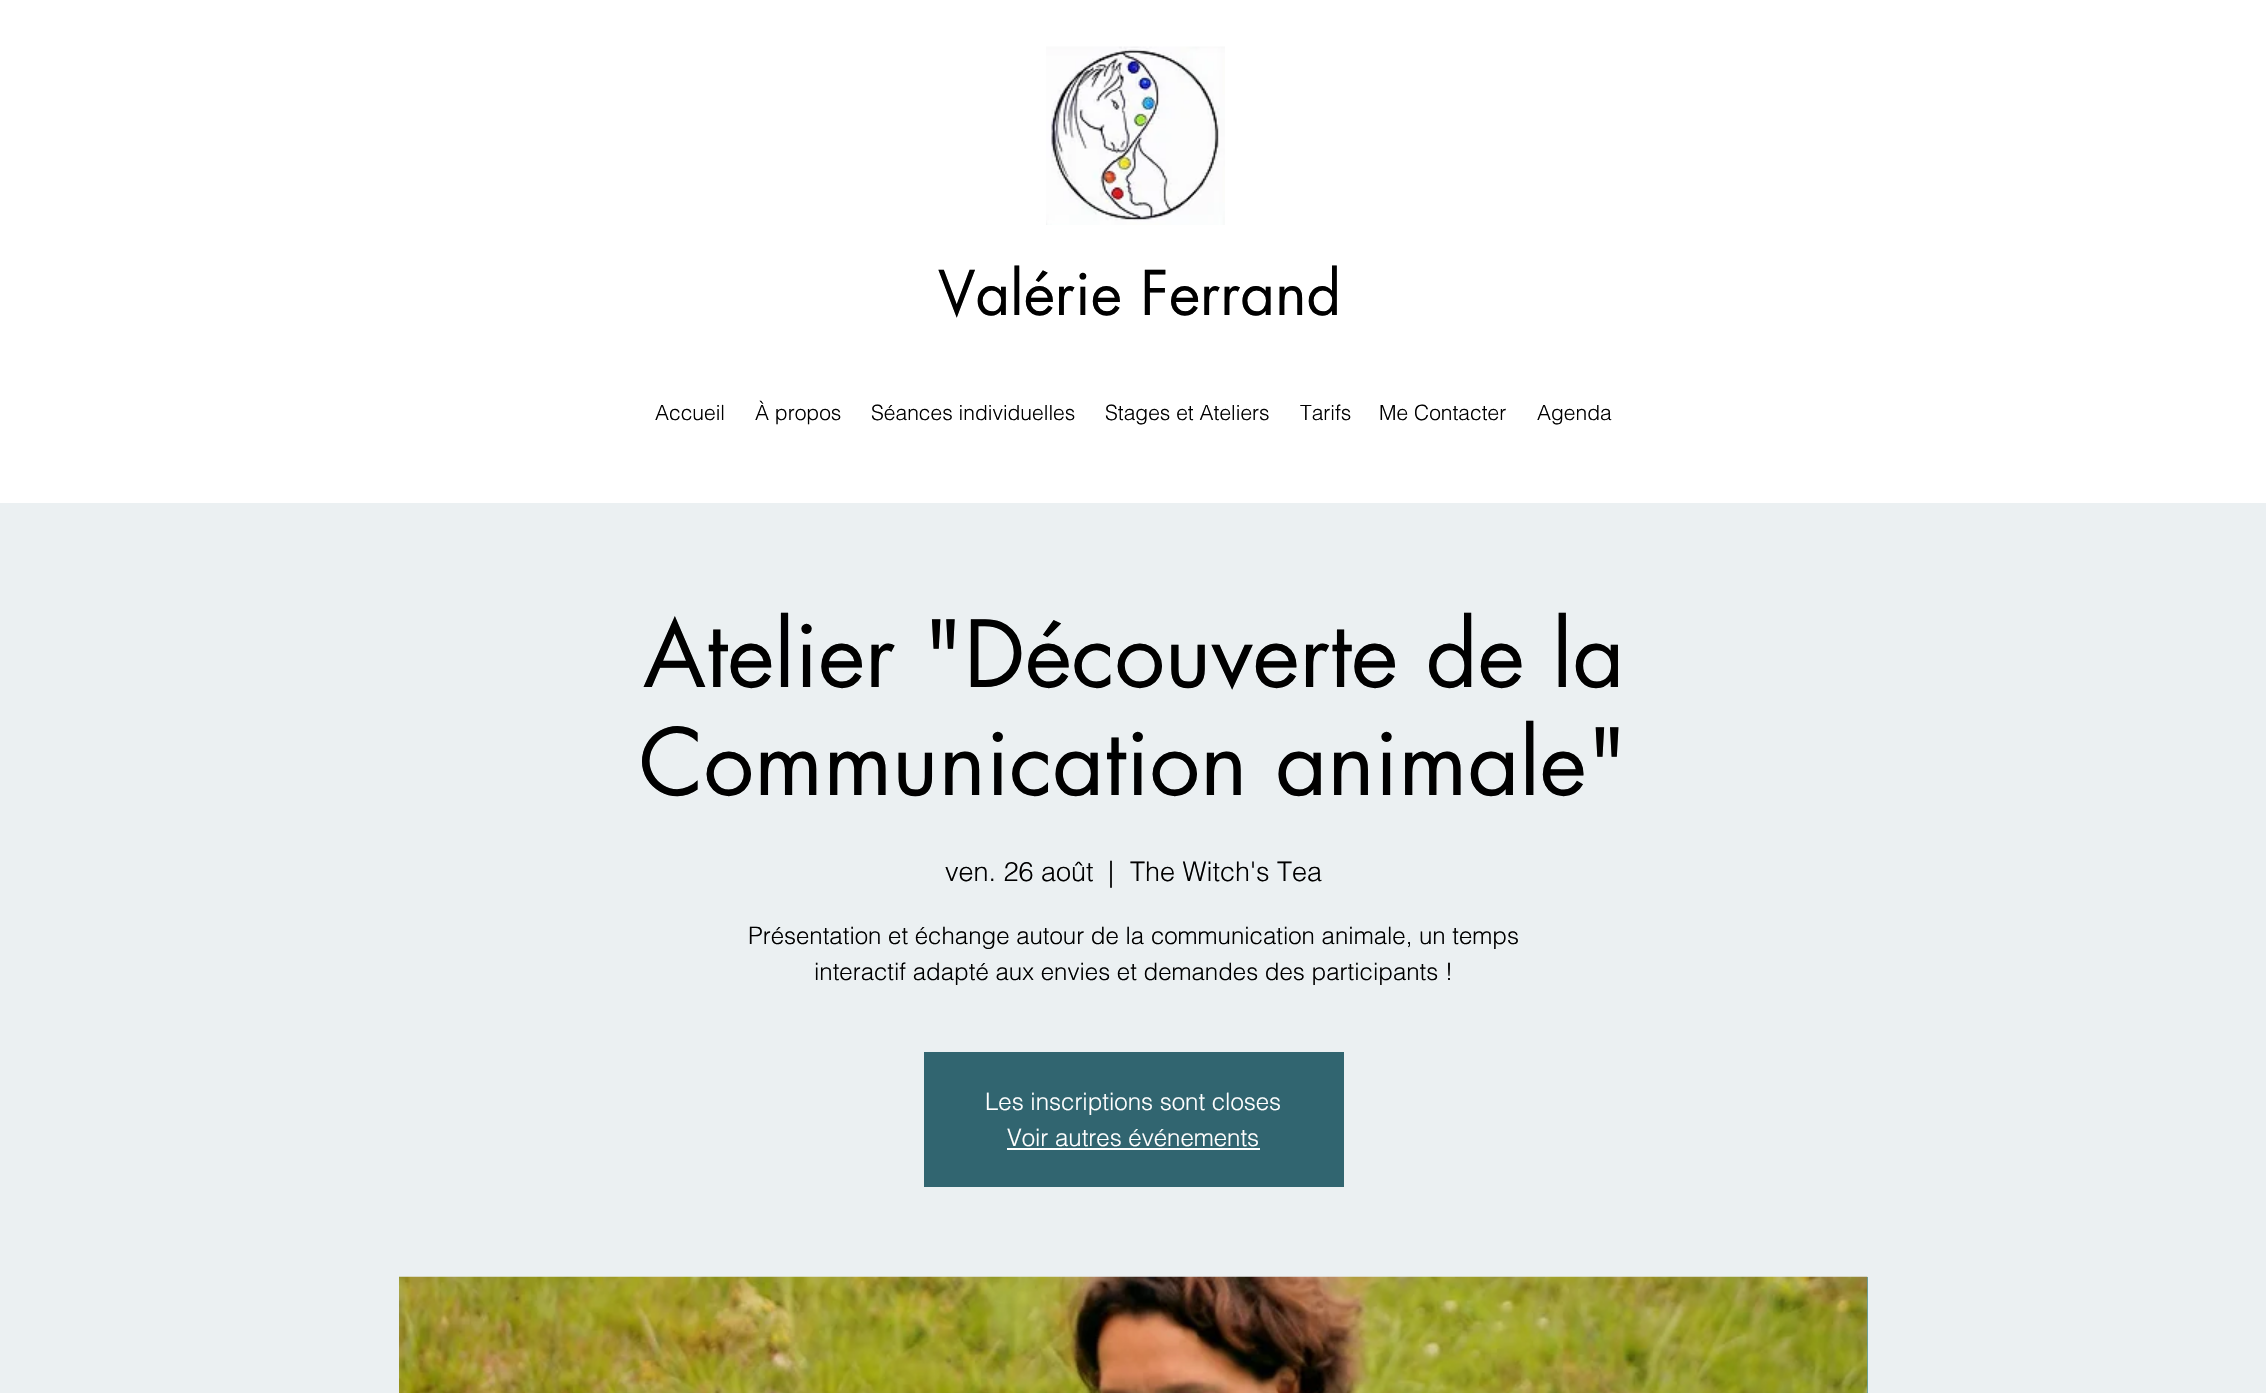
static SkFont makeFont(const char* family, int weight, float size, bool italic = false) {
  SkFontStyle style(weight, SkFontStyle::kNormal_Width,
    italic ? SkFontStyle::kItalic_Slant : SkFontStyle::kUpright_Slant);
  SkFont result(fontMgr->matchFamilyStyle(family, style), size);
  result.setSubpixel(true);
  return result;
}

static void text(SkCanvas* c, const char* s, float x, float y, const SkFont& font, SkColor color) {
  SkPaint ink(SkColor4f::FromColor(color));
  ink.setAntiAlias(true);
  c->drawString(s, x, y, font, ink);
}

static void box(SkCanvas* c, float l, float t, float r, float b, SkColor color) {
  SkPaint ink(SkColor4f::FromColor(color));
  ink.setAntiAlias(true);
  c->drawRect(SkRect::MakeLTRB(l, t, r, b), ink);
}

static void picture(SkCanvas* c, const char* path, float l, float t, float r, float b) {
  auto image = SkImages::DeferredFromEncodedData(SkData::MakeFromFileName(path));
  c->drawImageRect(image, SkRect::MakeLTRB(l, t, r, b), SkSamplingOptions());
}

void draw(SkCanvas* c) {
  SkPaint paint;
  paint.setAntiAlias(true);
  c->clear(0xffffffff);
  picture(c, "img_01.png", 1046, 46, 1225, 225);
  SkFont face1 = makeFont("futura", 400, 60);
  text(c, "Valérie Ferrand", 938, 315, face1, 0xff000000);
  SkFont face2 = makeFont("helvetica", 300, 21);
  text(c, "Accueil", 655, 420, face2, 0xff000000);
  text(c, "À propos", 755, 420, face2, 0xff000000);
  text(c, "Séances individuelles", 871, 420, face2, 0xff000000);
  text(c, "Stages et Ateliers", 1105, 420, face2, 0xff000000);
  text(c, "Tarifs", 1300, 420, face2, 0xff000000);
  text(c, "Me Contacter", 1379, 420, face2, 0xff000000);
  text(c, "Agenda", 1537, 420, face2, 0xff000000);
  box(c, 0, 503, 2266, 1393, 0xffebf0f2);
  SkFont face3 = makeFont("futura", 400, 90);
  text(c, "Atelier \"Découverte de la", 643, 687, face3, 0xff000000);
  text(c, "Communication animale\"", 639, 795, face3, 0xff000000);
  SkFont face4 = makeFont("helvetica", 300, 27);
  text(c, "ven. 26 août", 945, 881, face4, 0xff000000);
  text(c, "|", 1108, 881, face4, 0xff000000);
  text(c, "The Witch's Tea", 1130, 881, face4, 0xff000000);
  SkFont face5 = makeFont("helvetica", 300, 24);
  text(c, "Présentation et échange autour de la communication animale, un temps", 748, 944, face5, 0xff000000);
  text(c, "interactif adapté aux envies et demandes des participants !", 814, 980, face5, 0xff000000);
  box(c, 924, 1052, 1344, 1187, 0xff316570);
  text(c, "Les inscriptions sont closes", 985, 1110, face5, 0xffffffff);
  text(c, "Voir autres événements", 1007, 1146, face5, 0xffffffff);
  box(c, 1007, 1148, 1260, 1150, 0xffffffff);
  box(c, 1867, 1277, 1868, 1393, 0xff5da8b8);
  picture(c, "img_02.png", 399, 1276, 1868, 1393);
}
